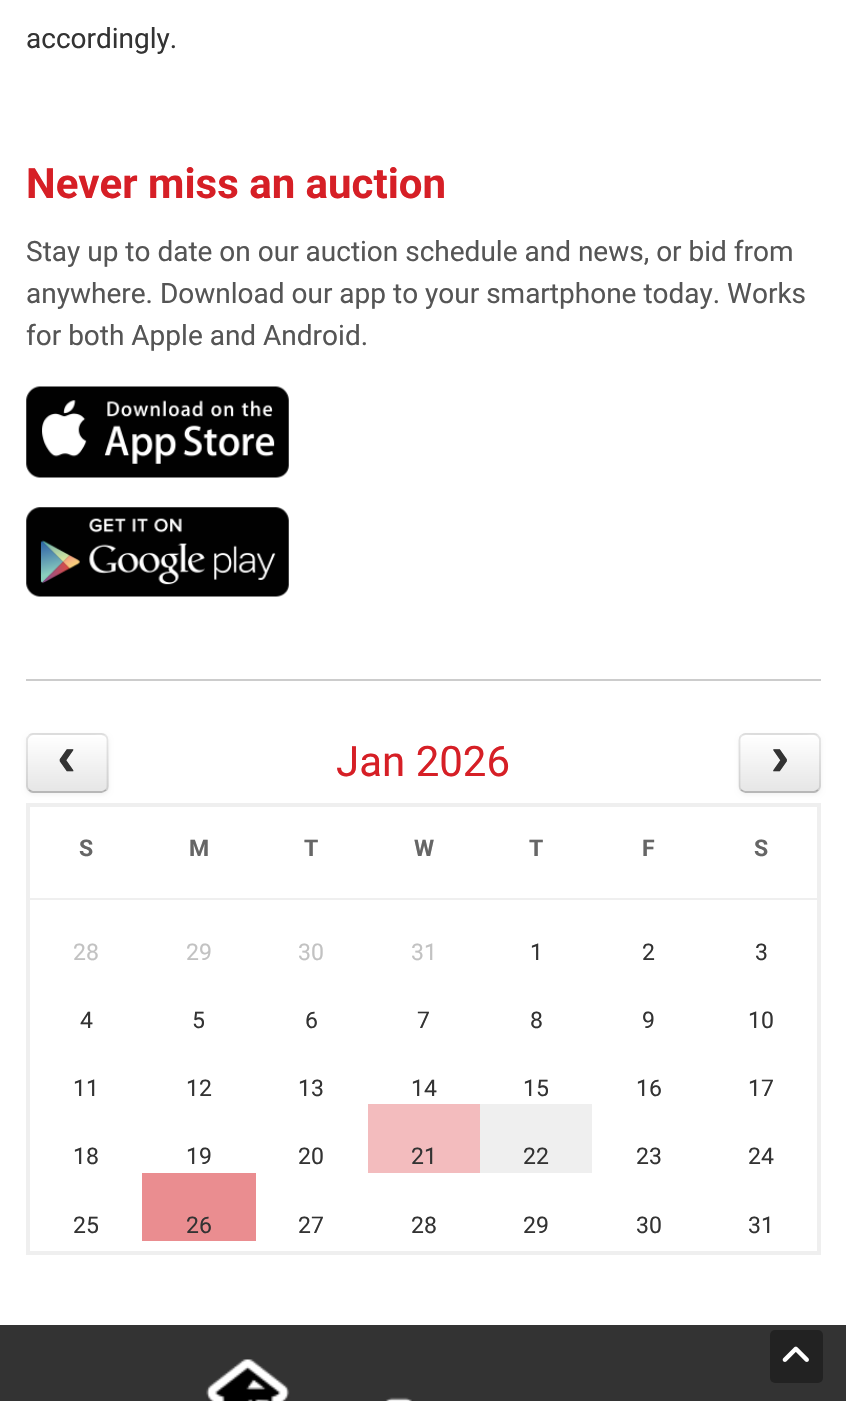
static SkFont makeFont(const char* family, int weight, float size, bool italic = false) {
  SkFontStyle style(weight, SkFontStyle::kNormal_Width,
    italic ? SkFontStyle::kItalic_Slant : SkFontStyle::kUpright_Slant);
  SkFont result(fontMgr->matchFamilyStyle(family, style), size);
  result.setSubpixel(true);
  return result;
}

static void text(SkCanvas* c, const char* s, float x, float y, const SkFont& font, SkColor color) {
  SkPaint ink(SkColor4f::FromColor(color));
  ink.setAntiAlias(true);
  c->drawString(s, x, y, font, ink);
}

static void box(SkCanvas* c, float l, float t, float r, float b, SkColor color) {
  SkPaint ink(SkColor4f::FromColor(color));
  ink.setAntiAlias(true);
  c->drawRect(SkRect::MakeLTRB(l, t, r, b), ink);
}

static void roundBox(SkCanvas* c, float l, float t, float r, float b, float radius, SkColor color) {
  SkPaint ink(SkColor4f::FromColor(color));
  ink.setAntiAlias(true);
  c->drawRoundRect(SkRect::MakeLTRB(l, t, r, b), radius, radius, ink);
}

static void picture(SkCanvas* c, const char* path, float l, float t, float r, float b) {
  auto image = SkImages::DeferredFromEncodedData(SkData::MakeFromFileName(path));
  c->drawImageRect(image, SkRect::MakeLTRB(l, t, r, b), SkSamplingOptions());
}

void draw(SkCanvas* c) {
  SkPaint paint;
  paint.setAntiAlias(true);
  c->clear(0xffffffff);
  SkFont face1 = makeFont("Roboto", 400, 28);
  text(c, "accordingly.", 26, 48, face1, 0xff333333);
  box(c, 26, 679, 821, 681, 0xffcccccc);
  SkFont face2 = makeFont("Roboto", 700, 42);
  text(c, "Never miss an auction", 26, 198, face2, 0xffd61f26);
  text(c, "Stay up to date on our auction schedule and news, or bid from", 26, 261, face1, 0xff555555);
  text(c, "anywhere. Download our app to your smartphone today. Works", 26, 303, face1, 0xff555555);
  text(c, "for both Apple and Android.", 26, 345, face1, 0xff555555);
  picture(c, "img_01.png", 26, 386, 289, 478);
  picture(c, "img_02.png", 26, 507, 289, 597);
  paint.setColor(0x0d000000);
  paint.setMaskFilter(SkMaskFilter::MakeBlur(kNormal_SkBlurStyle, 2));
  c->drawRoundRect(SkRect::MakeLTRB(26, 735, 109, 795), 7, 7, paint);
  paint.setMaskFilter(nullptr);
  roundBox(c, 26, 733, 109, 793, 7, 0xfff5f5f5);
  c->save();
  c->clipPath(SkPathBuilder().moveTo(33, 733).lineTo(102, 733).cubicTo(106, 733, 109, 736, 109, 740).lineTo(109, 786).cubicTo(109, 790, 106, 793, 102, 793).lineTo(33, 793).cubicTo(29, 793, 26, 790, 26, 786).lineTo(26, 740).cubicTo(26, 736, 29, 733, 33, 733).close().detach(), true);
  {
    const SkColor colors[] = {0xffffffff, 0xffe6e6e6};
    const float stops[] = {0, 1};
    const SkPoint ends[] = {{67, 735}, {67, 791}};
    paint.setShader(SkGradientShader::MakeLinear(ends, colors, stops, 2, SkTileMode::kClamp));
    paint.setAlpha(255);
  }
  c->drawRect(SkRect::MakeLTRB(26, 735, 109, 791), paint);
  c->restore();
  paint.setShader(nullptr);
  paint.setColor(0xffffffff);
  c->drawPath(SkPathBuilder().moveTo(33, 737).lineTo(102, 737).cubicTo(104, 737, 107, 739, 107, 742).cubicTo(107, 732, 99, 735, 90, 735).lineTo(44, 735).cubicTo(36, 735, 28, 732, 28, 742).cubicTo(28, 739, 30, 737, 33, 737).close().detach(), paint);
  paint.setStyle(SkPaint::kStroke_Style);
  paint.setStrokeWidth(1.8f);
  paint.setColor(0x40000000);
  c->drawPath(SkPathBuilder().moveTo(106, 790).cubicTo(104.5f, 791, 103, 792, 101.5f, 792).lineTo(33, 792).cubicTo(31.5f, 792, 30, 791, 29, 790).detach(), paint);
  paint.setColor(0x1a000000);
  c->drawPath(SkPathBuilder().moveTo(29, 790).cubicTo(28, 789, 27, 787.5f, 27, 786).lineTo(27, 740).cubicTo(27, 738.5f, 28, 737, 29, 736).cubicTo(30, 735, 31.5f, 734, 33, 734).lineTo(101.5f, 734).cubicTo(103, 734, 104.5f, 735, 106, 736).cubicTo(107, 737, 107.5f, 738.5f, 107.5f, 740).lineTo(107.5f, 786).cubicTo(107.5f, 787.5f, 107, 789, 106, 790).detach(), paint);
  SkFont face3 = makeFont("Liberation Mono", 700, 56);
  text(c, "‹", 50, 775, face3, 0xff333333);
  SkFont face4 = makeFont("Roboto", 400, 42);
  text(c, "Jan 2026", 336, 776, face4, 0xffd61f26);
  paint.setStyle(SkPaint::kFill_Style);
  paint.setColor(0x0d000000);
  paint.setMaskFilter(SkMaskFilter::MakeBlur(kNormal_SkBlurStyle, 2));
  c->drawRoundRect(SkRect::MakeLTRB(739, 735, 821, 795), 7, 7, paint);
  paint.setMaskFilter(nullptr);
  roundBox(c, 739, 733, 821, 793, 7, 0xfff5f5f5);
  c->save();
  c->clipPath(SkPathBuilder().moveTo(746, 733).lineTo(814, 733).cubicTo(818, 733, 821, 736, 821, 740).lineTo(821, 786).cubicTo(821, 790, 818, 793, 814, 793).lineTo(746, 793).cubicTo(742, 793, 739, 790, 739, 786).lineTo(739, 740).cubicTo(739, 736, 742, 733, 746, 733).close().detach(), true);
  {
    const SkColor colors[] = {0xffffffff, 0xffe6e6e6};
    const float stops[] = {0, 1};
    const SkPoint ends[] = {{780, 735}, {780, 791}};
    paint.setShader(SkGradientShader::MakeLinear(ends, colors, stops, 2, SkTileMode::kClamp));
    paint.setAlpha(255);
  }
  c->drawRect(SkRect::MakeLTRB(739, 735, 821, 791), paint);
  c->restore();
  paint.setShader(nullptr);
  paint.setColor(0xffffffff);
  c->drawPath(SkPathBuilder().moveTo(746, 737).lineTo(814, 737).cubicTo(817, 737, 819, 739, 819, 742).cubicTo(819, 732, 811, 735, 802, 735).lineTo(756, 735).cubicTo(748, 735, 740, 732, 740, 742).cubicTo(740, 739, 743, 737, 746, 737).close().detach(), paint);
  paint.setStyle(SkPaint::kStroke_Style);
  paint.setColor(0x40000000);
  c->drawPath(SkPathBuilder().moveTo(818, 790).cubicTo(817, 791, 815.5f, 792, 814, 792).lineTo(745.5f, 792).cubicTo(744, 792, 742.5f, 791, 741, 790).detach(), paint);
  paint.setColor(0x1a000000);
  c->drawPath(SkPathBuilder().moveTo(741, 790).cubicTo(740, 789, 739.5f, 787.5f, 739.5f, 786).lineTo(739.5f, 740).cubicTo(739.5f, 738.5f, 740, 737, 741, 736).cubicTo(742.5f, 735, 744, 734, 745.5f, 734).lineTo(814, 734).cubicTo(815.5f, 734, 817, 735, 818, 736).cubicTo(819, 737, 820, 738.5f, 820, 740).lineTo(820, 786).cubicTo(820, 787.5f, 819, 789, 818, 790).detach(), paint);
  text(c, "›", 763, 775, face3, 0xff333333);
  paint.setStrokeWidth(4);
  paint.setColor(0xffefefef);
  c->drawRect(SkRect::MakeLTRB(28, 805, 819, 1253), paint);
  box(c, 30, 898, 819, 900, 0xffefefef);
  SkFont face5 = makeFont("Roboto", 700, 23);
  text(c, "S", 79, 856, face5, 0xff666666);
  text(c, "M", 189, 856, face5, 0xff666666);
  text(c, "T", 304, 856, face5, 0xff666666);
  text(c, "W", 414, 856, face5, 0xff666666);
  text(c, "T", 529, 856, face5, 0xff666666);
  text(c, "F", 642, 856, face5, 0xff666666);
  text(c, "S", 754, 856, face5, 0xff666666);
  SkFont face6 = makeFont("Roboto", 400, 23);
  text(c, "28", 73, 960, face6, 0xffc2c2c2);
  text(c, "29", 186, 960, face6, 0xffc2c2c2);
  text(c, "30", 298, 960, face6, 0xffc2c2c2);
  text(c, "31", 411, 960, face6, 0xffc2c2c2);
  text(c, "1", 530, 960, face6, 0xff333333);
  text(c, "2", 642, 960, face6, 0xff333333);
  text(c, "3", 755, 960, face6, 0xff333333);
  text(c, "4", 80, 1028, face6, 0xff333333);
  text(c, "5", 192, 1028, face6, 0xff333333);
  text(c, "6", 305, 1028, face6, 0xff333333);
  text(c, "7", 417, 1028, face6, 0xff333333);
  text(c, "8", 530, 1028, face6, 0xff333333);
  text(c, "9", 642, 1028, face6, 0xff333333);
  text(c, "10", 748, 1028, face6, 0xff333333);
  text(c, "11", 73, 1096, face6, 0xff333333);
  text(c, "12", 186, 1096, face6, 0xff333333);
  text(c, "13", 298, 1096, face6, 0xff333333);
  text(c, "14", 411, 1096, face6, 0xff333333);
  text(c, "15", 523, 1096, face6, 0xff333333);
  text(c, "16", 636, 1096, face6, 0xff333333);
  text(c, "17", 748, 1096, face6, 0xff333333);
  box(c, 368, 1104, 480, 1173, 0xfff3bcbe);
  box(c, 480, 1104, 592, 1173, 0xffefefef);
  text(c, "18", 73, 1164, face6, 0xff333333);
  text(c, "19", 186, 1164, face6, 0xff333333);
  text(c, "20", 298, 1164, face6, 0xff333333);
  text(c, "21", 411, 1164, face6, 0xff333333);
  text(c, "22", 523, 1164, face6, 0xff333333);
  text(c, "23", 636, 1164, face6, 0xff333333);
  text(c, "24", 748, 1164, face6, 0xff333333);
  box(c, 142, 1173, 256, 1241, 0xffea8d90);
  text(c, "25", 73, 1233, face6, 0xff333333);
  text(c, "26", 186, 1233, face6, 0xff333333);
  text(c, "27", 298, 1233, face6, 0xff333333);
  text(c, "28", 411, 1233, face6, 0xff333333);
  text(c, "29", 523, 1233, face6, 0xff333333);
  text(c, "30", 636, 1233, face6, 0xff333333);
  text(c, "31", 748, 1233, face6, 0xff333333);
  box(c, 0, 1325, 846, 1401, 0xff333333);
  picture(c, "img_03.png", 206, 1359, 412, 1401);
  roundBox(c, 770, 1330, 823, 1383, 5, 0xff222222);
  picture(c, "img_04.png", 782, 1346, 809, 1362);
}
